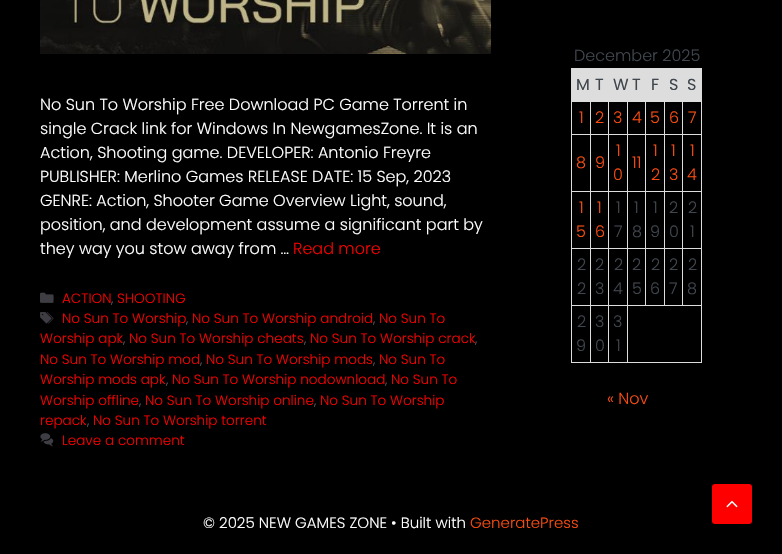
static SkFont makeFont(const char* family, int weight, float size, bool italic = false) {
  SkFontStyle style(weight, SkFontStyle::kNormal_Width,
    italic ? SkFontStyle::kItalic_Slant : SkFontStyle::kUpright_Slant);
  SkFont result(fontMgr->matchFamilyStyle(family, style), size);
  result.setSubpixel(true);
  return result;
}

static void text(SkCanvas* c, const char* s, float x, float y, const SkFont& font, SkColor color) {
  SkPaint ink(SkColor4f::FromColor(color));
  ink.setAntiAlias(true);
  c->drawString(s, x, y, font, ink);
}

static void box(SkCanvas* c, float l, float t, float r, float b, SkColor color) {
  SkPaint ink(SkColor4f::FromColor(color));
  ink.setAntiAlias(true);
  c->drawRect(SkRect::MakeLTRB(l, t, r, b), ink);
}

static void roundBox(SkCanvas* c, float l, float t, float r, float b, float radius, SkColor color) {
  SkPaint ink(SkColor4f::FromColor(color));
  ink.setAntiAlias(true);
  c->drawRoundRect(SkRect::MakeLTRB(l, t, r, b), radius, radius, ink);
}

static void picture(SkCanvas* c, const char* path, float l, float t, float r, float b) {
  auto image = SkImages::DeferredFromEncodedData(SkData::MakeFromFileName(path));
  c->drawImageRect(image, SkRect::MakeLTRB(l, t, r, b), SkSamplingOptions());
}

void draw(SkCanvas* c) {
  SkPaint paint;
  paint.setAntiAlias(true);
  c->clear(0xff000000);
  picture(c, "img_01.png", 40, 0, 491, 54);
  SkFont face1 = makeFont("Poppins", 300, 16);
  text(c, "No Sun To Worship Free Download PC Game Torrent in", 40, 110, face1, 0xffffffff);
  text(c, "single Crack link for Windows In NewgamesZone. It is an", 40, 134, face1, 0xffffffff);
  text(c, "Action, Shooting game. DEVELOPER: Antonio Freyre", 40, 158, face1, 0xffffffff);
  text(c, "PUBLISHER: Merlino Games RELEASE DATE: 15 Sep, 2023", 40, 182, face1, 0xffffffff);
  text(c, "GENRE: Action, Shooter Game Overview Light, sound,", 40, 206, face1, 0xffffffff);
  text(c, "position, and development assume a significant part by", 40, 230, face1, 0xffffffff);
  text(c, "they way you stow away from …", 40, 254, face1, 0xffffffff);
  text(c, "Read more", 293, 254, face1, 0xfff50000);
  picture(c, "img_02.png", 40, 292, 54, 303);
  SkFont face2 = makeFont("Poppins", 300, 13.6f);
  text(c, "ACTION", 62, 303, face2, 0xfff50000);
  text(c, ",", 111, 303, face2, 0xff575760);
  text(c, "SHOOTING", 117, 303, face2, 0xfff50000);
  picture(c, "img_03.png", 40, 312, 54, 324);
  text(c, "No Sun To Worship", 62, 323, face2, 0xfff50000);
  text(c, ",", 186, 323, face2, 0xff575760);
  text(c, "No Sun To Worship android", 192, 323, face2, 0xfff50000);
  text(c, ",", 373, 323, face2, 0xff575760);
  text(c, "No Sun To", 379, 323, face2, 0xfff50000);
  text(c, "Worship apk", 40, 343, face2, 0xfff50000);
  text(c, ",", 123, 343, face2, 0xff575760);
  text(c, "No Sun To Worship cheats", 129, 343, face2, 0xfff50000);
  text(c, ",", 304, 343, face2, 0xff575760);
  text(c, "No Sun To Worship crack", 310, 343, face2, 0xfff50000);
  text(c, ",", 475, 343, face2, 0xff575760);
  text(c, "No Sun To Worship mod", 40, 364, face2, 0xfff50000);
  text(c, ",", 200, 364, face2, 0xff575760);
  text(c, "No Sun To Worship mods", 206, 364, face2, 0xfff50000);
  text(c, ",", 373, 364, face2, 0xff575760);
  text(c, "No Sun To", 379, 364, face2, 0xfff50000);
  text(c, "Worship mods apk", 40, 384, face2, 0xfff50000);
  text(c, ",", 166, 384, face2, 0xff575760);
  text(c, "No Sun To Worship nodownload", 172, 384, face2, 0xfff50000);
  text(c, ",", 385, 384, face2, 0xff575760);
  text(c, "No Sun To", 391, 384, face2, 0xfff50000);
  text(c, "Worship offline", 40, 405, face2, 0xfff50000);
  text(c, ",", 139, 405, face2, 0xff575760);
  text(c, "No Sun To Worship online", 145, 405, face2, 0xfff50000);
  text(c, ",", 314, 405, face2, 0xff575760);
  text(c, "No Sun To Worship", 320, 405, face2, 0xfff50000);
  text(c, "repack", 40, 425, face2, 0xfff50000);
  text(c, ",", 87, 425, face2, 0xff575760);
  text(c, "No Sun To Worship torrent", 93, 425, face2, 0xfff50000);
  picture(c, "img_04.png", 40, 433, 54, 447);
  text(c, "Leave a comment", 62, 445, face2, 0xfff50000);
  text(c, "December 2025", 574, 61, face1, 0xff40464d);
  box(c, 572, 69, 590, 101, 0xffdddddd);
  box(c, 571, 68, 702, 69, 0xffdddddd);
  box(c, 590, 69, 683, 102, 0xffdddddd);
  box(c, 682, 134, 702, 135, 0xffdddddd);
  box(c, 682, 191, 702, 192, 0xffdddddd);
  box(c, 682, 248, 702, 249, 0xffdddddd);
  box(c, 627, 305, 702, 306, 0xffdddddd);
  box(c, 682, 248, 683, 306, 0xffdddddd);
  box(c, 664, 248, 683, 249, 0xffdddddd);
  box(c, 682, 191, 683, 249, 0xffdddddd);
  box(c, 664, 191, 683, 192, 0xffdddddd);
  box(c, 682, 134, 683, 192, 0xffdddddd);
  box(c, 664, 134, 683, 135, 0xffdddddd);
  box(c, 664, 248, 665, 306, 0xffdddddd);
  box(c, 645, 248, 665, 249, 0xffdddddd);
  box(c, 664, 191, 665, 249, 0xffdddddd);
  box(c, 645, 191, 665, 192, 0xffdddddd);
  box(c, 664, 134, 665, 192, 0xffdddddd);
  box(c, 645, 134, 665, 135, 0xffdddddd);
  box(c, 645, 248, 646, 306, 0xffdddddd);
  box(c, 627, 248, 646, 249, 0xffdddddd);
  box(c, 645, 191, 646, 249, 0xffdddddd);
  box(c, 627, 191, 646, 192, 0xffdddddd);
  box(c, 645, 134, 646, 192, 0xffdddddd);
  box(c, 627, 134, 646, 135, 0xffdddddd);
  box(c, 701, 305, 702, 363, 0xffdddddd);
  box(c, 627, 362, 702, 363, 0xffdddddd);
  box(c, 627, 305, 628, 363, 0xffdddddd);
  box(c, 608, 305, 628, 306, 0xffdddddd);
  box(c, 627, 248, 628, 306, 0xffdddddd);
  box(c, 608, 248, 628, 249, 0xffdddddd);
  box(c, 627, 191, 628, 249, 0xffdddddd);
  box(c, 608, 191, 628, 192, 0xffdddddd);
  box(c, 627, 134, 628, 192, 0xffdddddd);
  box(c, 608, 134, 628, 135, 0xffdddddd);
  box(c, 608, 362, 628, 363, 0xffdddddd);
  box(c, 608, 305, 609, 363, 0xffdddddd);
  box(c, 590, 305, 609, 306, 0xffdddddd);
  box(c, 608, 248, 609, 306, 0xffdddddd);
  box(c, 590, 248, 609, 249, 0xffdddddd);
  box(c, 608, 191, 609, 249, 0xffdddddd);
  box(c, 590, 191, 609, 192, 0xffdddddd);
  box(c, 608, 134, 609, 192, 0xffdddddd);
  box(c, 590, 134, 609, 135, 0xffdddddd);
  box(c, 590, 362, 609, 363, 0xffdddddd);
  box(c, 590, 305, 591, 363, 0xffdddddd);
  box(c, 571, 305, 591, 306, 0xffdddddd);
  box(c, 590, 248, 591, 306, 0xffdddddd);
  box(c, 571, 248, 591, 249, 0xffdddddd);
  box(c, 590, 191, 591, 249, 0xffdddddd);
  box(c, 571, 191, 591, 192, 0xffdddddd);
  box(c, 590, 134, 591, 192, 0xffdddddd);
  box(c, 571, 134, 591, 135, 0xffdddddd);
  box(c, 590, 101, 591, 135, 0xffdddddd);
  box(c, 571, 101, 591, 102, 0xffdddddd);
  box(c, 571, 362, 591, 363, 0xffdddddd);
  box(c, 571, 305, 572, 363, 0xffdddddd);
  box(c, 571, 248, 572, 306, 0xffdddddd);
  box(c, 571, 191, 572, 249, 0xffdddddd);
  box(c, 571, 134, 572, 192, 0xffdddddd);
  box(c, 571, 101, 572, 135, 0xffdddddd);
  box(c, 571, 68, 572, 102, 0xffdddddd);
  SkFont face3 = makeFont("Poppins", 400, 16);
  text(c, "M", 576, 90, face3, 0xff40464d);
  text(c, "T", 595, 90, face3, 0xff40464d);
  text(c, "W", 613, 90, face3, 0xff40464d);
  text(c, "T", 632, 90, face3, 0xff40464d);
  text(c, "F", 651, 90, face3, 0xff40464d);
  text(c, "S", 669, 90, face3, 0xff40464d);
  box(c, 683, 69, 701, 101, 0xffdddddd);
  box(c, 682, 101, 702, 102, 0xffdddddd);
  box(c, 701, 248, 702, 306, 0xffdddddd);
  box(c, 701, 191, 702, 249, 0xffdddddd);
  box(c, 701, 134, 702, 192, 0xffdddddd);
  box(c, 701, 101, 702, 135, 0xffdddddd);
  box(c, 701, 68, 702, 102, 0xffdddddd);
  text(c, "S", 687, 90, face3, 0xff40464d);
  text(c, "1", 579, 123, face1, 0xfff94c10);
  text(c, "2", 595, 123, face1, 0xfff94c10);
  box(c, 608, 101, 609, 135, 0xffdddddd);
  text(c, "3", 613, 123, face1, 0xfff94c10);
  box(c, 627, 101, 628, 135, 0xffdddddd);
  text(c, "4", 632, 123, face1, 0xfff94c10);
  box(c, 645, 101, 646, 135, 0xffdddddd);
  text(c, "5", 650, 123, face1, 0xfff94c10);
  box(c, 664, 101, 665, 135, 0xffdddddd);
  text(c, "6", 669, 123, face1, 0xfff94c10);
  box(c, 682, 101, 683, 135, 0xffdddddd);
  text(c, "7", 688, 123, face1, 0xfff94c10);
  text(c, "8", 576, 168, face1, 0xfff94c10);
  text(c, "9", 595, 168, face1, 0xfff94c10);
  text(c, "1", 616, 156, face1, 0xfff94c10);
  text(c, "0", 613, 180, face1, 0xfff94c10);
  text(c, "11", 632, 168, face1, 0xfff94c10);
  text(c, "1", 653, 156, face1, 0xfff94c10);
  text(c, "2", 651, 180, face1, 0xfff94c10);
  text(c, "1", 671, 156, face1, 0xfff94c10);
  text(c, "3", 669, 180, face1, 0xfff94c10);
  text(c, "1", 690, 156, face1, 0xfff94c10);
  text(c, "4", 687, 180, face1, 0xfff94c10);
  text(c, "1", 579, 213, face1, 0xfff94c10);
  text(c, "5", 576, 237, face1, 0xfff94c10);
  text(c, "1", 597, 213, face1, 0xfff94c10);
  text(c, "6", 595, 237, face1, 0xfff94c10);
  text(c, "1", 616, 213, face1, 0xff40464d);
  text(c, "7", 614, 237, face1, 0xff40464d);
  text(c, "1", 634, 213, face1, 0xff40464d);
  text(c, "8", 632, 237, face1, 0xff40464d);
  text(c, "1", 653, 213, face1, 0xff40464d);
  text(c, "9", 650, 237, face1, 0xff40464d);
  text(c, "2", 669, 213, face1, 0xff40464d);
  text(c, "0", 669, 237, face1, 0xff40464d);
  text(c, "2", 688, 213, face1, 0xff40464d);
  text(c, "1", 690, 237, face1, 0xff40464d);
  text(c, "2", 577, 270, face1, 0xff40464d);
  text(c, "2", 577, 294, face1, 0xff40464d);
  text(c, "2", 595, 270, face1, 0xff40464d);
  text(c, "3", 595, 294, face1, 0xff40464d);
  text(c, "2", 614, 270, face1, 0xff40464d);
  text(c, "4", 613, 294, face1, 0xff40464d);
  text(c, "2", 632, 270, face1, 0xff40464d);
  text(c, "5", 632, 294, face1, 0xff40464d);
  text(c, "2", 651, 270, face1, 0xff40464d);
  text(c, "6", 650, 294, face1, 0xff40464d);
  text(c, "2", 669, 270, face1, 0xff40464d);
  text(c, "7", 669, 294, face1, 0xff40464d);
  text(c, "2", 688, 270, face1, 0xff40464d);
  text(c, "8", 687, 294, face1, 0xff40464d);
  text(c, "2", 577, 327, face1, 0xff40464d);
  text(c, "9", 576, 351, face1, 0xff40464d);
  text(c, "3", 595, 327, face1, 0xff40464d);
  text(c, "0", 595, 351, face1, 0xff40464d);
  text(c, "3", 613, 327, face1, 0xff40464d);
  text(c, "1", 616, 351, face1, 0xff40464d);
  text(c, "« Nov", 607, 404, face1, 0xfff94c10);
  SkFont face4 = makeFont("Poppins", 300, 15);
  text(c, "© 2025 NEW GAMES ZONE • Built with", 203, 528, face4, 0xffffffff);
  text(c, "GeneratePress", 470, 528, face4, 0xfff94c10);
  roundBox(c, 712, 484, 752, 524, 3, 0xffff0000);
  picture(c, "img_05.png", 726, 500, 738, 508);
}
